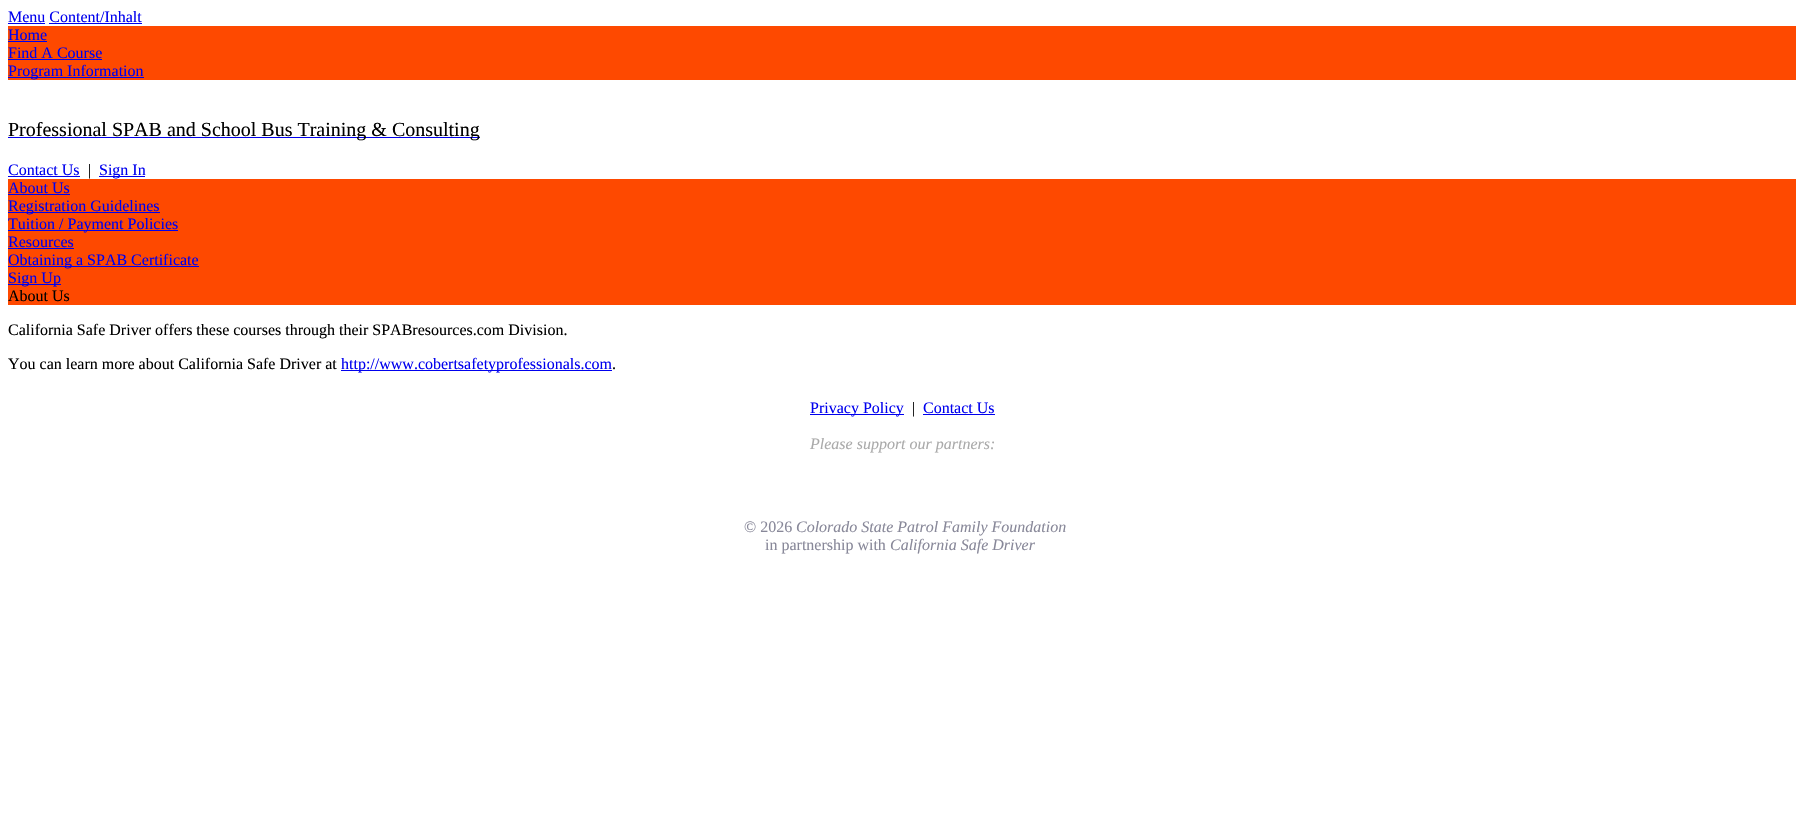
static SkFont makeFont(const char* family, int weight, float size, bool italic = false) {
  SkFontStyle style(weight, SkFontStyle::kNormal_Width,
    italic ? SkFontStyle::kItalic_Slant : SkFontStyle::kUpright_Slant);
  SkFont result(fontMgr->matchFamilyStyle(family, style), size);
  result.setSubpixel(true);
  return result;
}

static void text(SkCanvas* c, const char* s, float x, float y, const SkFont& font, SkColor color) {
  SkPaint ink(SkColor4f::FromColor(color));
  ink.setAntiAlias(true);
  c->drawString(s, x, y, font, ink);
}

static void box(SkCanvas* c, float l, float t, float r, float b, SkColor color) {
  SkPaint ink(SkColor4f::FromColor(color));
  ink.setAntiAlias(true);
  c->drawRect(SkRect::MakeLTRB(l, t, r, b), ink);
}

void draw(SkCanvas* c) {
  SkPaint paint;
  paint.setAntiAlias(true);
  c->clear(0xffffffff);
  SkFont face1 = makeFont("Liberation Serif", 400, 16);
  text(c, "Menu Content/Inhalt", 8, 22, face1, 0xff0000ee);
  box(c, 8, 23, 45, 24, 0xff0000ee);
  box(c, 49, 23, 142, 24, 0xff0000ee);
  box(c, 8, 26, 1796, 80, 0xfffe4900);
  text(c, "Home", 8, 40, face1, 0xff0000ee);
  box(c, 8, 41, 47, 42, 0xff0000ee);
  text(c, "Find A Course", 8, 58, face1, 0xff0000ee);
  box(c, 8, 59, 102, 60, 0xff0000ee);
  box(c, 8, 77, 144, 78, 0xff0000ee);
  text(c, "Program Information", 8, 76, face1, 0xff0000ee);
  box(c, 8, 137, 480, 138, 0xff0000ee);
  SkFont face2 = makeFont("Liberation Serif", 400, 20);
  text(c, "Professional SPAB and School Bus Training & Consulting", 8, 136, face2, 0xff000000);
  text(c, "Contact Us", 8, 175, face1, 0xff0000ee);
  box(c, 8, 176, 80, 177, 0xff0000ee);
  text(c, "|", 88, 175, face1, 0xff000000);
  box(c, 99, 176, 145, 177, 0xff0000ee);
  text(c, "Sign In", 99, 175, face1, 0xff0000ee);
  box(c, 8, 179, 1796, 305, 0xfffe4900);
  text(c, "About Us", 8, 193, face1, 0xff0000ee);
  box(c, 8, 194, 70, 195, 0xff0000ee);
  box(c, 8, 212, 160, 213, 0xff0000ee);
  text(c, "Registration Guidelines", 8, 211, face1, 0xff0000ee);
  box(c, 8, 230, 178, 231, 0xff0000ee);
  text(c, "Tuition / Payment Policies", 8, 229, face1, 0xff0000ee);
  text(c, "Resources", 8, 247, face1, 0xff0000ee);
  box(c, 8, 248, 74, 249, 0xff0000ee);
  box(c, 8, 266, 199, 267, 0xff0000ee);
  text(c, "Obtaining a SPAB Certificate", 8, 265, face1, 0xff0000ee);
  box(c, 8, 284, 61, 285, 0xff0000ee);
  text(c, "Sign Up", 8, 283, face1, 0xff0000ee);
  text(c, "About Us", 8, 301, face1, 0xff000000);
  text(c, "California Safe Driver offers these courses through their SPABresources.com Division.", 8, 335, face1, 0xff000000);
  text(c, "You can learn more about California Safe Driver at", 8, 369, face1, 0xff000000);
  box(c, 341, 370, 612, 371, 0xff0000ee);
  text(c, "http://www.cobertsafetyprofessionals.com", 341, 369, face1, 0xff0000ee);
  text(c, ".", 612, 369, face1, 0xff000000);
  box(c, 810, 414, 904, 415, 0xff0000ee);
  text(c, "Privacy Policy", 810, 413, face1, 0xff0000ee);
  text(c, "|", 912, 413, face1, 0xff000000);
  text(c, "Contact Us", 923, 413, face1, 0xff0000ee);
  box(c, 923, 414, 995, 415, 0xff0000ee);
  SkFont face3 = makeFont("Liberation Serif", 400, 16, true);
  text(c, "Please support our partners:", 810, 449, face3, 0xffaaaaaa);
  text(c, "© 2026", 744, 532, face1, 0xff888899);
  text(c, "Colorado State Patrol Family Foundation", 796, 532, face3, 0xff888899);
  text(c, "in partnership with", 765, 550, face1, 0xff888899);
  text(c, "California Safe Driver", 890, 550, face3, 0xff888899);
}
